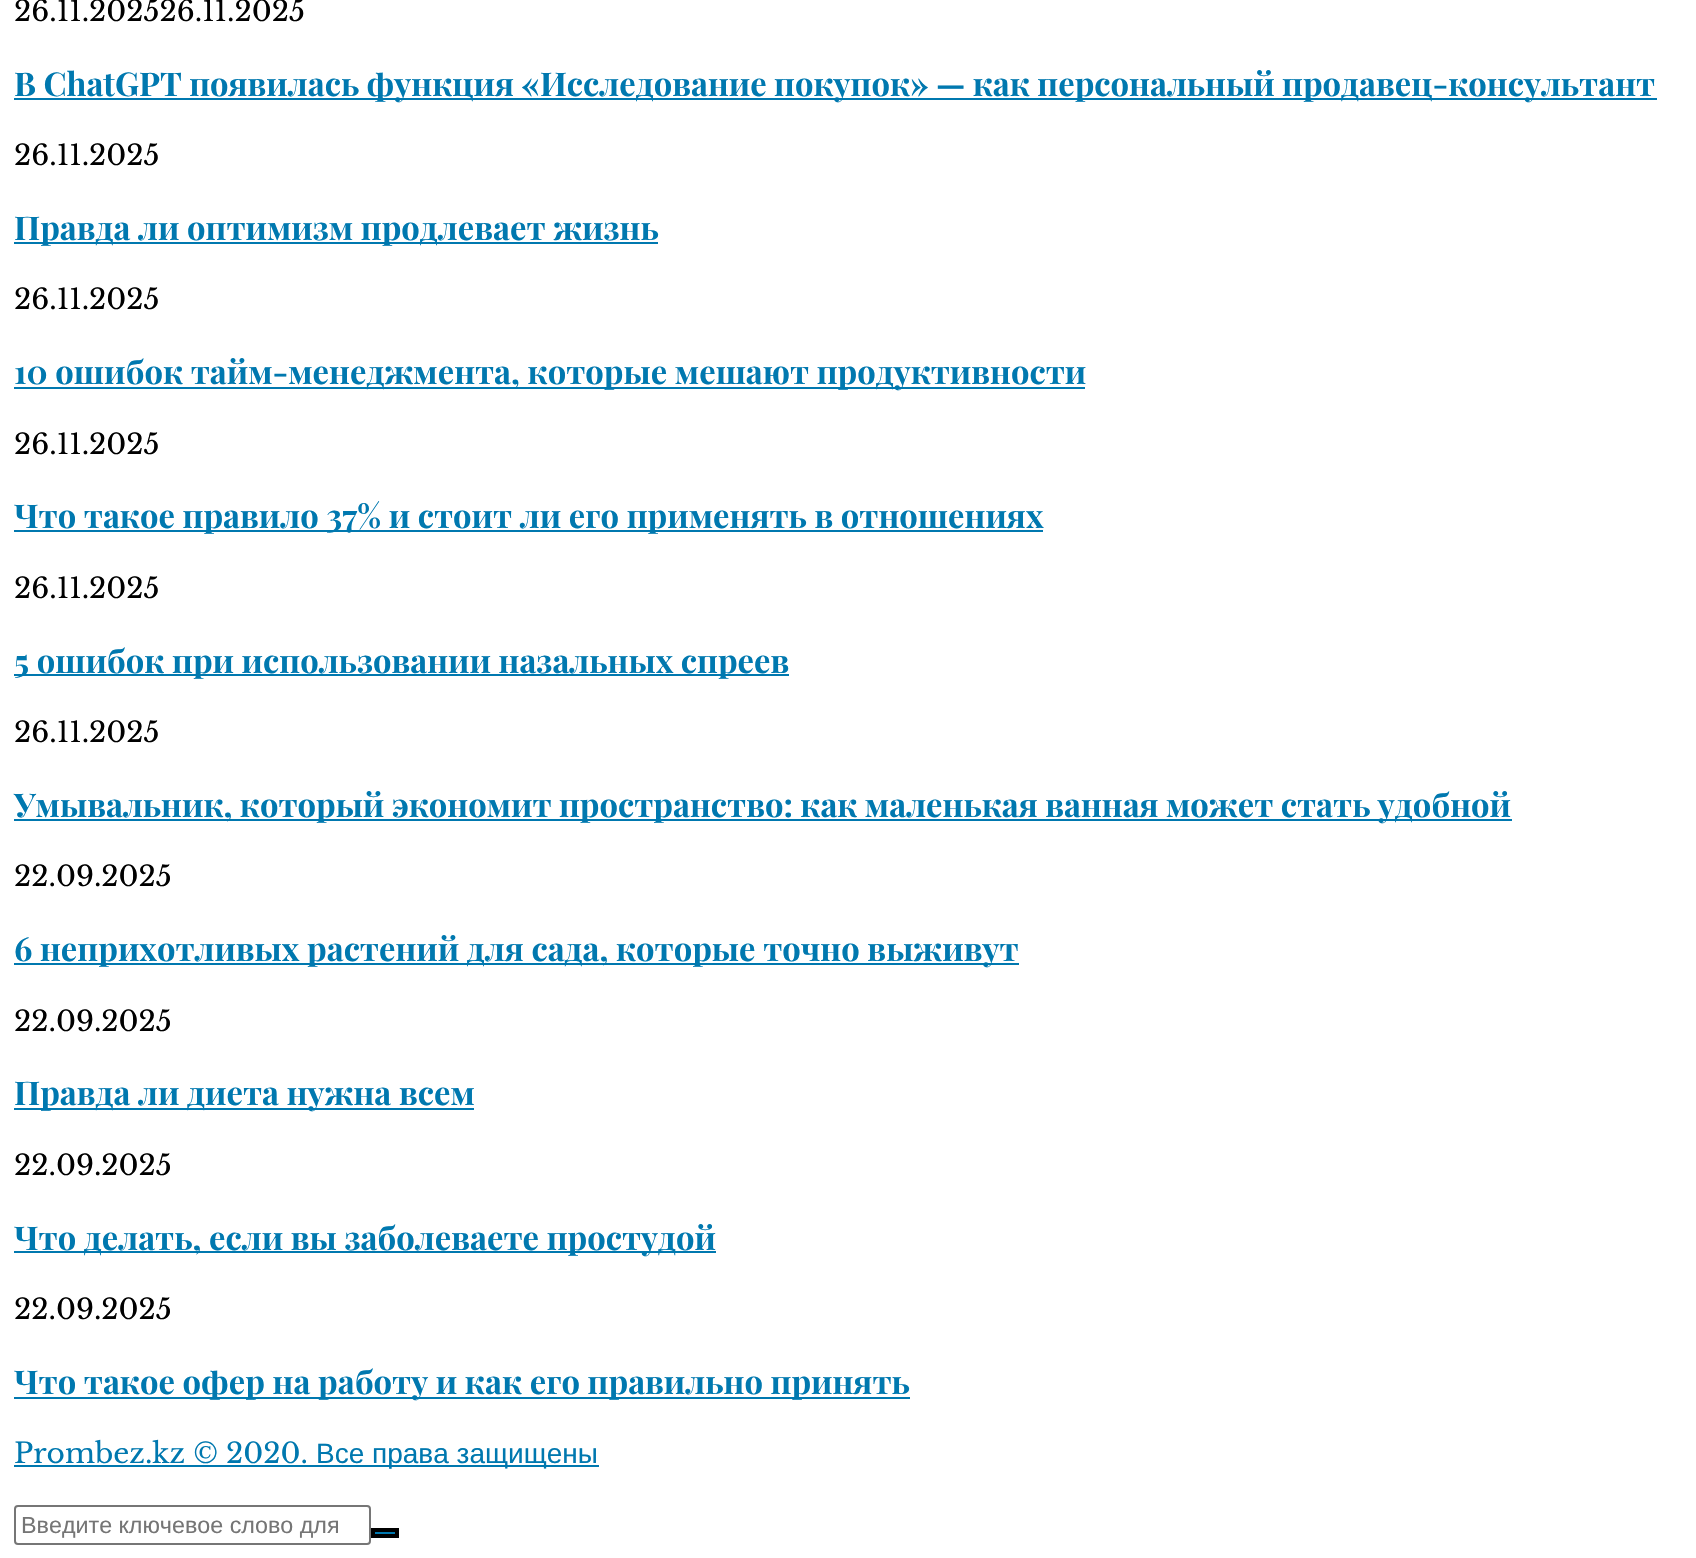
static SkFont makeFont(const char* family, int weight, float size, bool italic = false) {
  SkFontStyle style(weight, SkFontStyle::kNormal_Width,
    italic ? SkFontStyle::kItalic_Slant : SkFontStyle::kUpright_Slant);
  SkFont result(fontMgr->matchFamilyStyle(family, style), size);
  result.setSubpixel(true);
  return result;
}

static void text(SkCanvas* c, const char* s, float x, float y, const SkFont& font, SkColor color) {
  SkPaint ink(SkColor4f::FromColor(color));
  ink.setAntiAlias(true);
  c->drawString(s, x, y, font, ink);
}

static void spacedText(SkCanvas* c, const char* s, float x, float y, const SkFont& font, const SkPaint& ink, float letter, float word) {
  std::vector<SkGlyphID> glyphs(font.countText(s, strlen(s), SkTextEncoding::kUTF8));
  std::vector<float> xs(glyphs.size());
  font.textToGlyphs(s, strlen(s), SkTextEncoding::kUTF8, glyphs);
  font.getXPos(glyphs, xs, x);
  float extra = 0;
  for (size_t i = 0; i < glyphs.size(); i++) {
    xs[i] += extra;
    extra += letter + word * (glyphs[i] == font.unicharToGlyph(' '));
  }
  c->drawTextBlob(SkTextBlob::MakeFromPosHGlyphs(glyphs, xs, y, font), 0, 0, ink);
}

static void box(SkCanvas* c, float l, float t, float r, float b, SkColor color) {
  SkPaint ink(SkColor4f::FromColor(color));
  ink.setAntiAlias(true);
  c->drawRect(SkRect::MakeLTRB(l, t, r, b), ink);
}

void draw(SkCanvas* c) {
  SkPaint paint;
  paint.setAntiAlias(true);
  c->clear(0xffffffff);
  SkFont face1 = makeFont("Libre Baskerville", 400, 28);
  text(c, "26.11.202526.11.2025", 14, 21, face1, 0xff000000);
  box(c, 14, 98, 1657, 100, 0xff0078af);
  SkFont face2 = makeFont("Playfair Display", 700, 32.75f);
  paint.setColor(0xff0078af);
  spacedText(c, "В ChatGPT появилась функция «Исследование покупок» — как персональный продавец-консультант", 14, 96, face2, paint, 0, -0.25f);
  text(c, "26.11.2025", 14, 165, face1, 0xff000000);
  box(c, 14, 242, 658, 244, 0xff0078af);
  text(c, "Правда ли оптимизм продлевает жизнь", 14, 240, face2, 0xff0078af);
  text(c, "26.11.2025", 14, 309, face1, 0xff000000);
  box(c, 14, 387, 1085, 389, 0xff0078af);
  text(c, "10 ошибок тайм-менеджмента, которые мешают продуктивности", 14, 384, face2, 0xff0078af);
  text(c, "26.11.2025", 14, 454, face1, 0xff000000);
  box(c, 14, 530, 1043, 532, 0xff0078af);
  text(c, "Что такое правило 37% и стоит ли его применять в отношениях", 14, 528, face2, 0xff0078af);
  text(c, "26.11.2025", 14, 598, face1, 0xff000000);
  box(c, 14, 674, 789, 676, 0xff0078af);
  text(c, "5 ошибок при использовании назальных спреев", 14, 673, face2, 0xff0078af);
  text(c, "26.11.2025", 14, 742, face1, 0xff000000);
  box(c, 14, 819, 1512, 821, 0xff0078af);
  spacedText(c, "Умывальник, который экономит пространство: как маленькая ванная может стать удобной", 14, 817, face2, paint, 0, -0.25f);
  text(c, "22.09.2025", 14, 886, face1, 0xff000000);
  box(c, 14, 963, 1019, 965, 0xff0078af);
  text(c, "6 неприхотливых растений для сада, которые точно выживут", 14, 961, face2, 0xff0078af);
  text(c, "22.09.2025", 14, 1031, face1, 0xff000000);
  box(c, 14, 1108, 474, 1110, 0xff0078af);
  text(c, "Правда ли диета нужна всем", 14, 1105, face2, 0xff0078af);
  text(c, "22.09.2025", 14, 1175, face1, 0xff000000);
  box(c, 14, 1251, 716, 1253, 0xff0078af);
  text(c, "Что делать, если вы заболеваете простудой", 14, 1250, face2, 0xff0078af);
  text(c, "22.09.2025", 14, 1319, face1, 0xff000000);
  box(c, 14, 1397, 910, 1399, 0xff0078af);
  text(c, "Что такое офер на работу и как его правильно принять", 14, 1394, face2, 0xff0078af);
  text(c, "Prombez.kz © 2020.", 14, 1463, face1, 0xff0078af);
  box(c, 14, 1465, 599, 1467, 0xff0078af);
  SkFont face3 = makeFont("Liberation Sans", 400, 28);
  text(c, "Все права защищены", 316, 1463, face3, 0xff0078af);
  paint.setStyle(SkPaint::kStroke_Style);
  paint.setStrokeWidth(2);
  paint.setColor(0xff767676);
  c->drawRoundRect(SkRect::MakeLTRB(15, 1506, 370, 1544), 3, 3, paint);
  SkFont face4 = makeFont("Liberation Sans", 400, 23.3f);
  text(c, "Введите ключевое слово для", 21, 1533, face4, 0xff757575);
  paint.setStyle(SkPaint::kFill_Style);
  paint.setColor(0xff0078af);
  c->drawRect(SkRect::MakeLTRB(373, 1530, 397, 1536), paint);
  paint.setStyle(SkPaint::kStroke_Style);
  paint.setStrokeWidth(4);
  paint.setColor(0xff000000);
  c->drawRect(SkRect::MakeLTRB(373, 1530, 397, 1536), paint);
}
